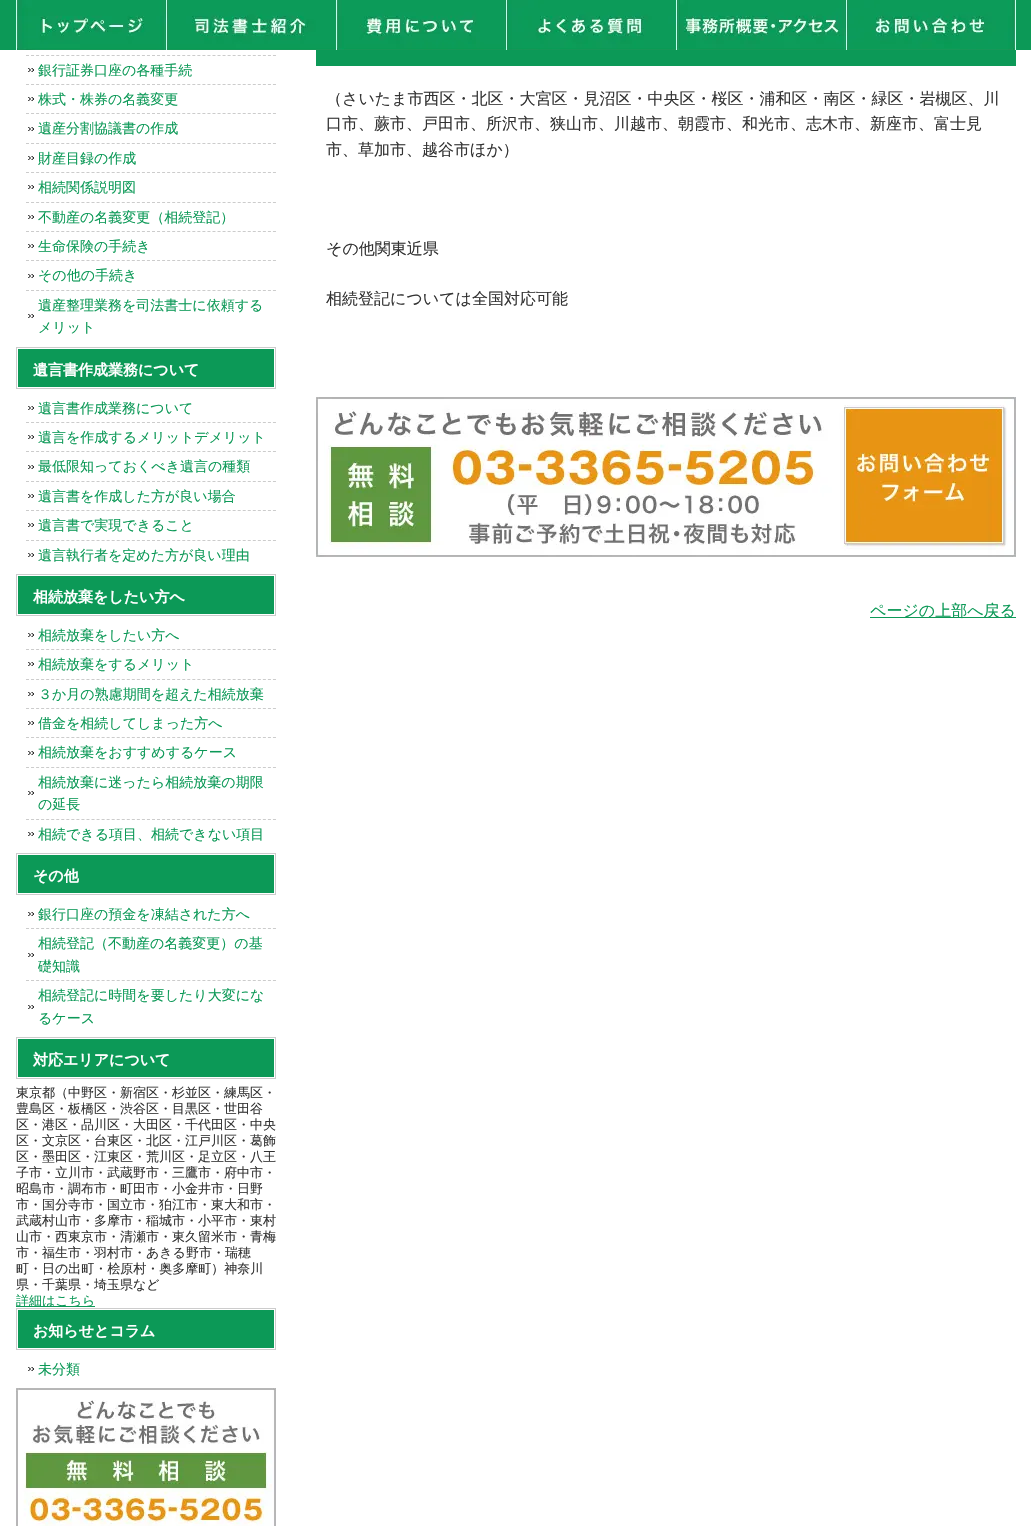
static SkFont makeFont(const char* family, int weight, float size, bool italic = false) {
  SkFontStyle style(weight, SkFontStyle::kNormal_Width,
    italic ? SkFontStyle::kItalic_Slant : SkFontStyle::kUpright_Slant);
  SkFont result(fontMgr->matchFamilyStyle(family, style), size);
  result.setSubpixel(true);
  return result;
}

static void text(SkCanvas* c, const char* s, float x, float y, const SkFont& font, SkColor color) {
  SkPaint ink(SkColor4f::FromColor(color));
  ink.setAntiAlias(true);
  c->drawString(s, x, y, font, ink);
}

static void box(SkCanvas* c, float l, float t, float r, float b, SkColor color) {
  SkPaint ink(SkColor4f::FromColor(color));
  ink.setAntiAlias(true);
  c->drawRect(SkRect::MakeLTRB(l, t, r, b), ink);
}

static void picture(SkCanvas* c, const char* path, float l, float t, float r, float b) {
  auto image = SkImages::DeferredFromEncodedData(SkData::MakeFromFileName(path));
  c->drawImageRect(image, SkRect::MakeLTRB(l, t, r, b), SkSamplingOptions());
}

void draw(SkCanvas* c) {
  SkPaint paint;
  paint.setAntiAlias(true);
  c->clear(0xffffffff);
  box(c, 0, 0, 1031, 50, 0xff0c9957);
  picture(c, "img_01.png", 16, 0, 166, 50);
  picture(c, "img_02.png", 166, 0, 336, 50);
  picture(c, "img_03.png", 336, 0, 506, 50);
  picture(c, "img_04.png", 506, 0, 676, 50);
  picture(c, "img_05.png", 676, 0, 846, 50);
  picture(c, "img_06.png", 846, 0, 1016, 50);
  paint.setStyle(SkPaint::kStroke_Style);
  paint.setStrokeWidth(1);
  paint.setColor(0xffcccccc);
  paint.setPathEffect(SkDashPathEffect::Make({{3, 2.04f}}, 0));
  c->drawPath(SkPathBuilder().moveTo(26, 55.5f).lineTo(276, 55.5f).detach(), paint);
  paint.setPathEffect(nullptr);
  picture(c, "img_07.png", 28, 68, 34, 72);
  paint.setPathEffect(SkDashPathEffect::Make({{3, 2.04f}}, 0));
  c->drawPath(SkPathBuilder().moveTo(26, 84.5f).lineTo(276, 84.5f).detach(), paint);
  paint.setPathEffect(nullptr);
  SkFont face1 = makeFont("WenQuanYi Zen Hei", 500, 14);
  text(c, "銀行証券口座の各種手続", 38, 75, face1, 0xff0c9957);
  picture(c, "img_07.png", 28, 97, 34, 101);
  paint.setPathEffect(SkDashPathEffect::Make({{3, 2.04f}}, 0));
  c->drawPath(SkPathBuilder().moveTo(26, 113.5f).lineTo(276, 113.5f).detach(), paint);
  paint.setPathEffect(nullptr);
  text(c, "株式・株券の名義変更", 38, 104, face1, 0xff0c9957);
  picture(c, "img_07.png", 28, 127, 34, 131);
  paint.setPathEffect(SkDashPathEffect::Make({{3, 2.04f}}, 0));
  c->drawPath(SkPathBuilder().moveTo(26, 143.5f).lineTo(276, 143.5f).detach(), paint);
  paint.setPathEffect(nullptr);
  text(c, "遺産分割協議書の作成", 38, 133, face1, 0xff0c9957);
  picture(c, "img_07.png", 28, 156, 34, 160);
  paint.setPathEffect(SkDashPathEffect::Make({{3, 2.04f}}, 0));
  c->drawPath(SkPathBuilder().moveTo(26, 172.5f).lineTo(276, 172.5f).detach(), paint);
  paint.setPathEffect(nullptr);
  text(c, "財産目録の作成", 38, 163, face1, 0xff0c9957);
  picture(c, "img_07.png", 28, 185, 34, 189);
  paint.setPathEffect(SkDashPathEffect::Make({{3, 2.04f}}, 0));
  c->drawPath(SkPathBuilder().moveTo(26, 202.5f).lineTo(276, 202.5f).detach(), paint);
  paint.setPathEffect(nullptr);
  text(c, "相続関係説明図", 38, 192, face1, 0xff0c9957);
  picture(c, "img_07.png", 28, 215, 34, 219);
  paint.setPathEffect(SkDashPathEffect::Make({{3, 2.04f}}, 0));
  c->drawPath(SkPathBuilder().moveTo(26, 231.5f).lineTo(276, 231.5f).detach(), paint);
  paint.setPathEffect(nullptr);
  text(c, "不動産の名義変更（相続登記）", 38, 222, face1, 0xff0c9957);
  picture(c, "img_07.png", 28, 244, 34, 248);
  paint.setPathEffect(SkDashPathEffect::Make({{3, 2.04f}}, 0));
  c->drawPath(SkPathBuilder().moveTo(26, 260.5f).lineTo(276, 260.5f).detach(), paint);
  paint.setPathEffect(nullptr);
  text(c, "生命保険の手続き", 38, 251, face1, 0xff0c9957);
  picture(c, "img_07.png", 28, 274, 34, 278);
  paint.setPathEffect(SkDashPathEffect::Make({{3, 2.04f}}, 0));
  c->drawPath(SkPathBuilder().moveTo(26, 290.5f).lineTo(276, 290.5f).detach(), paint);
  paint.setPathEffect(nullptr);
  text(c, "その他の手続き", 38, 280, face1, 0xff0c9957);
  picture(c, "img_07.png", 28, 314, 34, 318);
  text(c, "遺産整理業務を司法書士に依頼する", 38, 310, face1, 0xff0c9957);
  text(c, "メリット", 38, 332, face1, 0xff0c9957);
  c->drawRect(SkRect::MakeLTRB(16.5f, 347.5f, 275.5f, 388.5f), paint);
  box(c, 18, 349, 274, 387, 0xff0c9957);
  SkFont face2 = makeFont("WenQuanYi Zen Hei", 700, 15);
  text(c, "遺言書作成業務について", 33, 375, face2, 0xffffffff);
  picture(c, "img_07.png", 28, 406, 34, 410);
  paint.setPathEffect(SkDashPathEffect::Make({{3, 2.04f}}, 0));
  c->drawPath(SkPathBuilder().moveTo(26, 422.5f).lineTo(276, 422.5f).detach(), paint);
  paint.setPathEffect(nullptr);
  text(c, "遺言書作成業務について", 38, 413, face1, 0xff0c9957);
  picture(c, "img_07.png", 28, 435, 34, 439);
  paint.setPathEffect(SkDashPathEffect::Make({{3, 2.04f}}, 0));
  c->drawPath(SkPathBuilder().moveTo(26, 451.5f).lineTo(276, 451.5f).detach(), paint);
  paint.setPathEffect(nullptr);
  text(c, "遺言を作成するメリットデメリット", 38, 442, face1, 0xff0c9957);
  picture(c, "img_07.png", 28, 465, 34, 469);
  paint.setPathEffect(SkDashPathEffect::Make({{3, 2.04f}}, 0));
  c->drawPath(SkPathBuilder().moveTo(26, 481.5f).lineTo(276, 481.5f).detach(), paint);
  paint.setPathEffect(nullptr);
  text(c, "最低限知っておくべき遺言の種類", 38, 471, face1, 0xff0c9957);
  picture(c, "img_07.png", 28, 494, 34, 498);
  paint.setPathEffect(SkDashPathEffect::Make({{3, 2.04f}}, 0));
  c->drawPath(SkPathBuilder().moveTo(26, 510.5f).lineTo(276, 510.5f).detach(), paint);
  paint.setPathEffect(nullptr);
  text(c, "遺言書を作成した方が良い場合", 38, 501, face1, 0xff0c9957);
  picture(c, "img_07.png", 28, 523, 34, 527);
  paint.setPathEffect(SkDashPathEffect::Make({{3, 2.04f}}, 0));
  c->drawPath(SkPathBuilder().moveTo(26, 540.5f).lineTo(276, 540.5f).detach(), paint);
  paint.setPathEffect(nullptr);
  text(c, "遺言書で実現できること", 38, 530, face1, 0xff0c9957);
  picture(c, "img_07.png", 28, 553, 34, 557);
  text(c, "遺言執行者を定めた方が良い理由", 38, 560, face1, 0xff0c9957);
  c->drawRect(SkRect::MakeLTRB(16.5f, 574.5f, 275.5f, 615.5f), paint);
  box(c, 18, 576, 274, 614, 0xff0c9957);
  text(c, "相続放棄をしたい方へ", 33, 602, face2, 0xffffffff);
  picture(c, "img_07.png", 28, 633, 34, 637);
  paint.setPathEffect(SkDashPathEffect::Make({{3, 2.04f}}, 0));
  c->drawPath(SkPathBuilder().moveTo(26, 649.5f).lineTo(276, 649.5f).detach(), paint);
  paint.setPathEffect(nullptr);
  text(c, "相続放棄をしたい方へ", 38, 640, face1, 0xff0c9957);
  picture(c, "img_07.png", 28, 662, 34, 666);
  paint.setPathEffect(SkDashPathEffect::Make({{3, 2.04f}}, 0));
  c->drawPath(SkPathBuilder().moveTo(26, 679.5f).lineTo(276, 679.5f).detach(), paint);
  paint.setPathEffect(nullptr);
  text(c, "相続放棄をするメリット", 38, 669, face1, 0xff0c9957);
  picture(c, "img_07.png", 28, 692, 34, 696);
  paint.setPathEffect(SkDashPathEffect::Make({{3, 2.04f}}, 0));
  c->drawPath(SkPathBuilder().moveTo(26, 708.5f).lineTo(276, 708.5f).detach(), paint);
  paint.setPathEffect(nullptr);
  text(c, "３か月の熟慮期間を超えた相続放棄", 38, 699, face1, 0xff0c9957);
  picture(c, "img_07.png", 28, 721, 34, 725);
  paint.setPathEffect(SkDashPathEffect::Make({{3, 2.04f}}, 0));
  c->drawPath(SkPathBuilder().moveTo(26, 737.5f).lineTo(276, 737.5f).detach(), paint);
  paint.setPathEffect(nullptr);
  text(c, "借金を相続してしまった方へ", 38, 728, face1, 0xff0c9957);
  picture(c, "img_07.png", 28, 751, 34, 755);
  paint.setPathEffect(SkDashPathEffect::Make({{3, 2.04f}}, 0));
  c->drawPath(SkPathBuilder().moveTo(26, 767.5f).lineTo(276, 767.5f).detach(), paint);
  paint.setPathEffect(nullptr);
  text(c, "相続放棄をおすすめするケース", 38, 757, face1, 0xff0c9957);
  picture(c, "img_07.png", 28, 791, 34, 795);
  paint.setPathEffect(SkDashPathEffect::Make({{3, 2.04f}}, 0));
  c->drawPath(SkPathBuilder().moveTo(26, 819.5f).lineTo(276, 819.5f).detach(), paint);
  paint.setPathEffect(nullptr);
  text(c, "相続放棄に迷ったら相続放棄の期限", 38, 787, face1, 0xff0c9957);
  text(c, "の延長", 38, 809, face1, 0xff0c9957);
  picture(c, "img_07.png", 28, 832, 34, 836);
  text(c, "相続できる項目、相続できない項目", 38, 839, face1, 0xff0c9957);
  c->drawRect(SkRect::MakeLTRB(16.5f, 853.5f, 275.5f, 894.5f), paint);
  box(c, 18, 855, 274, 893, 0xff0c9957);
  text(c, "その他", 33, 881, face2, 0xffffffff);
  picture(c, "img_07.png", 28, 912, 34, 916);
  paint.setPathEffect(SkDashPathEffect::Make({{3, 2.04f}}, 0));
  c->drawPath(SkPathBuilder().moveTo(26, 928.5f).lineTo(276, 928.5f).detach(), paint);
  paint.setPathEffect(nullptr);
  text(c, "銀行口座の預金を凍結された方へ", 38, 919, face1, 0xff0c9957);
  picture(c, "img_07.png", 28, 953, 34, 957);
  paint.setPathEffect(SkDashPathEffect::Make({{3, 2.04f}}, 0));
  c->drawPath(SkPathBuilder().moveTo(26, 980.5f).lineTo(276, 980.5f).detach(), paint);
  paint.setPathEffect(nullptr);
  text(c, "相続登記（不動産の名義変更）の基", 38, 948, face1, 0xff0c9957);
  text(c, "礎知識", 38, 971, face1, 0xff0c9957);
  picture(c, "img_07.png", 28, 1005, 34, 1009);
  text(c, "相続登記に時間を要したり大変にな", 38, 1000, face1, 0xff0c9957);
  text(c, "るケース", 38, 1023, face1, 0xff0c9957);
  c->drawRect(SkRect::MakeLTRB(16.5f, 1037.5f, 275.5f, 1078.5f), paint);
  box(c, 18, 1039, 274, 1077, 0xff0c9957);
  text(c, "対応エリアについて", 33, 1065, face2, 0xffffffff);
  SkFont face3 = makeFont("WenQuanYi Zen Hei", 500, 13);
  text(c, "東京都（中野区・新宿区・杉並区・練馬区・", 16, 1097, face3, 0xff333333);
  text(c, "豊島区・板橋区・渋谷区・目黒区・世田谷", 16, 1113, face3, 0xff333333);
  text(c, "区・港区・品川区・大田区・千代田区・中央", 16, 1129, face3, 0xff333333);
  text(c, "区・文京区・台東区・北区・江戸川区・葛飾", 16, 1145, face3, 0xff333333);
  text(c, "区・墨田区・江東区・荒川区・足立区・八王", 16, 1161, face3, 0xff333333);
  text(c, "子市・立川市・武蔵野市・三鷹市・府中市・", 16, 1177, face3, 0xff333333);
  text(c, "昭島市・調布市・町田市・小金井市・日野", 16, 1193, face3, 0xff333333);
  text(c, "市・国分寺市・国立市・狛江市・東大和市・", 16, 1209, face3, 0xff333333);
  text(c, "武蔵村山市・多摩市・稲城市・小平市・東村", 16, 1225, face3, 0xff333333);
  text(c, "山市・西東京市・清瀬市・東久留米市・青梅", 16, 1241, face3, 0xff333333);
  text(c, "市・福生市・羽村市・あきる野市・瑞穂", 16, 1257, face3, 0xff333333);
  text(c, "町・日の出町・桧原村・奥多摩町）神奈川", 16, 1273, face3, 0xff333333);
  text(c, "県・千葉県・埼玉県など", 16, 1289, face3, 0xff333333);
  box(c, 16, 1306, 95, 1307, 0xff0c9957);
  text(c, "詳細はこちら", 16, 1305, face3, 0xff0c9957);
  c->drawRect(SkRect::MakeLTRB(16.5f, 1308.5f, 275.5f, 1349.5f), paint);
  box(c, 18, 1310, 274, 1348, 0xff0c9957);
  text(c, "お知らせとコラム", 33, 1336, face2, 0xffffffff);
  picture(c, "img_07.png", 28, 1367, 34, 1371);
  text(c, "未分類", 38, 1374, face1, 0xff0c9957);
  picture(c, "img_08.png", 16, 1388, 276, 1526);
  box(c, 316, 50, 1016, 66, 0xff0c9957);
  SkFont face4 = makeFont("WenQuanYi Zen Hei", 500, 16);
  text(c, "（さいたま市西区・北区・大宮区・見沼区・中央区・桜区・浦和区・南区・緑区・岩槻区、川", 326, 104, face4, 0xff333333);
  text(c, "口市、蕨市、戸田市、所沢市、狭山市、川越市、朝霞市、和光市、志木市、新座市、富士見", 326, 129, face4, 0xff333333);
  text(c, "市、草加市、越谷市ほか）", 326, 155, face4, 0xff333333);
  text(c, "その他関東近県", 326, 254, face4, 0xff333333);
  text(c, "相続登記については全国対応可能", 326, 304, face4, 0xff333333);
  picture(c, "img_09.png", 316, 397, 1016, 557);
  box(c, 870, 617, 1016, 618, 0xff0c9957);
  text(c, "ページの上部へ戻る", 870, 616, face4, 0xff0c9957);
}
